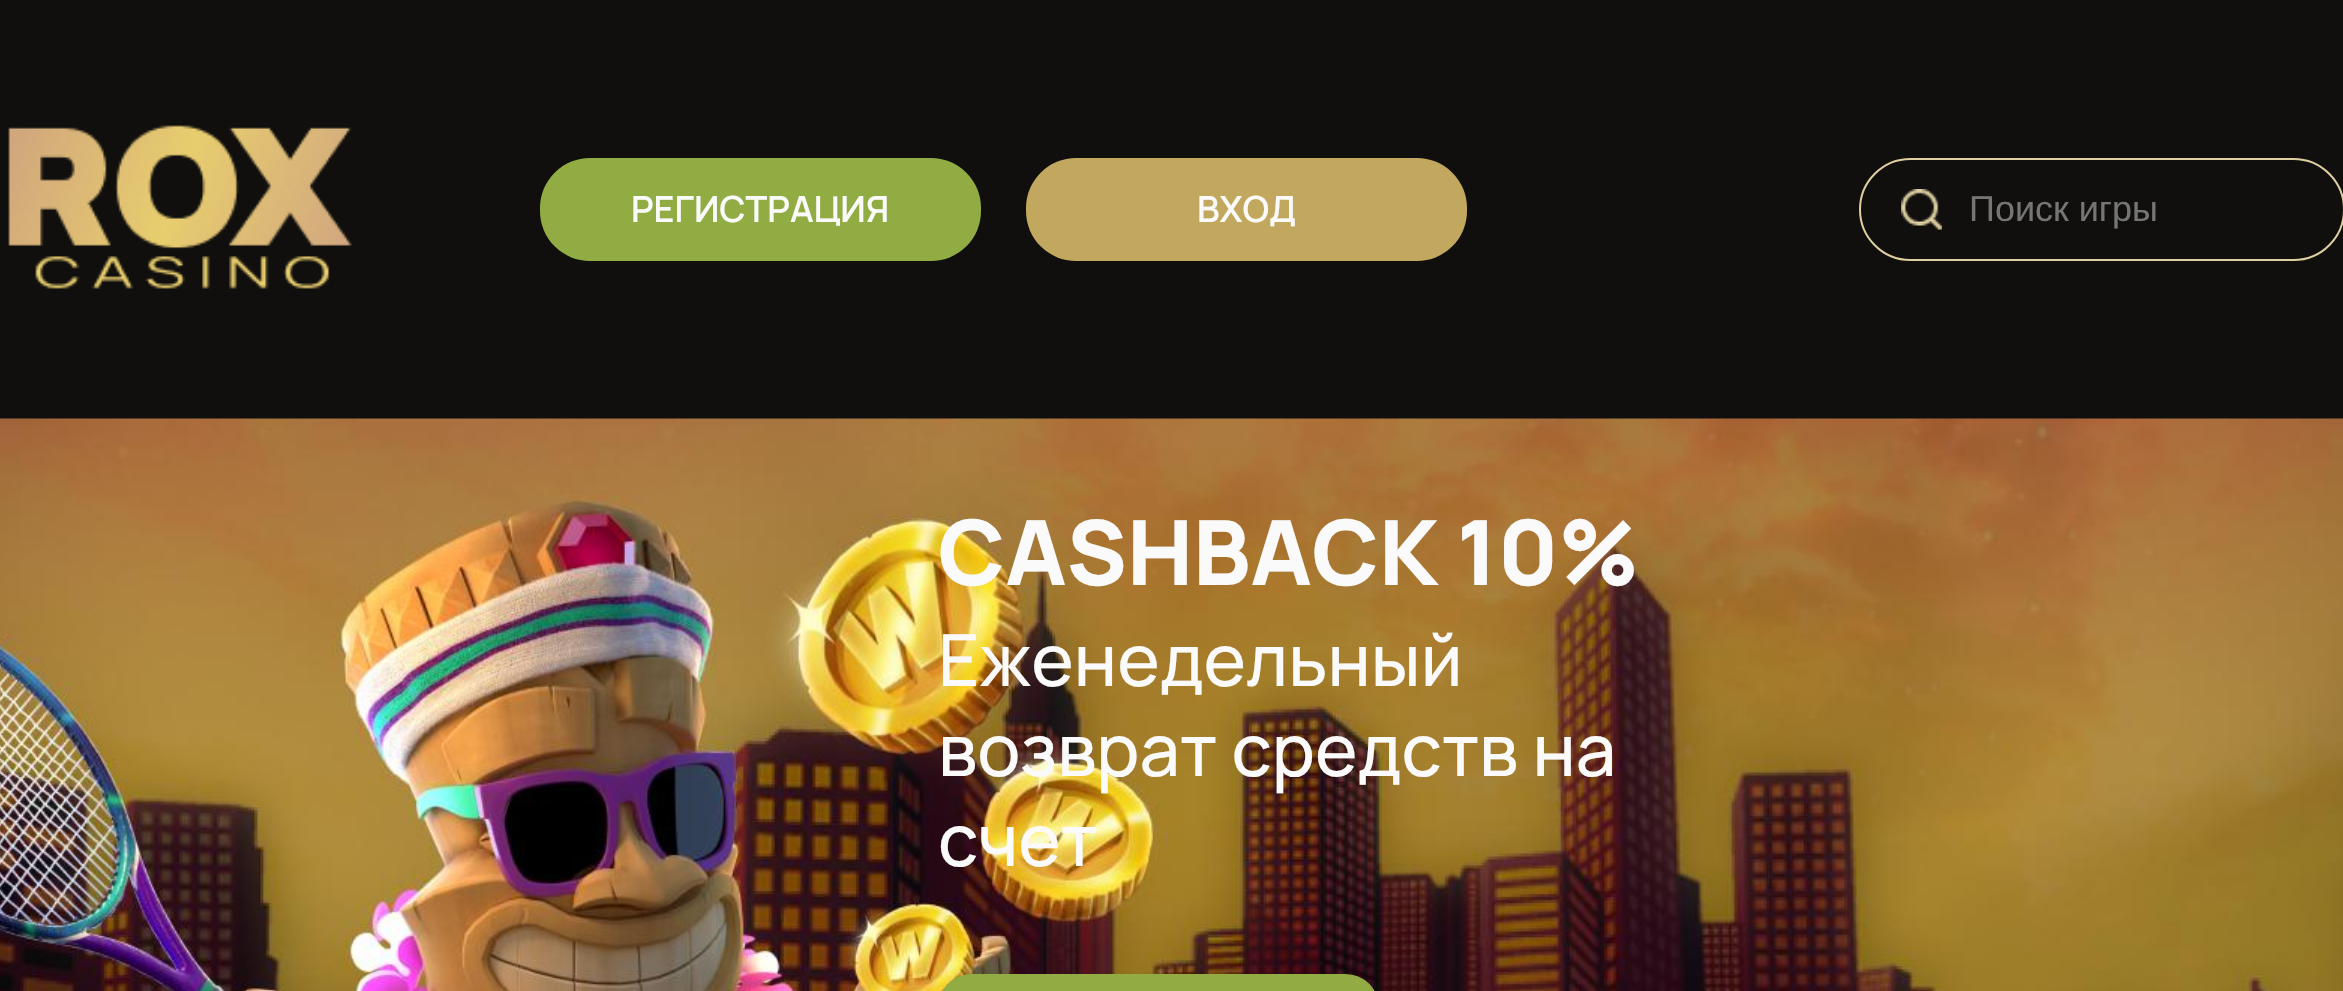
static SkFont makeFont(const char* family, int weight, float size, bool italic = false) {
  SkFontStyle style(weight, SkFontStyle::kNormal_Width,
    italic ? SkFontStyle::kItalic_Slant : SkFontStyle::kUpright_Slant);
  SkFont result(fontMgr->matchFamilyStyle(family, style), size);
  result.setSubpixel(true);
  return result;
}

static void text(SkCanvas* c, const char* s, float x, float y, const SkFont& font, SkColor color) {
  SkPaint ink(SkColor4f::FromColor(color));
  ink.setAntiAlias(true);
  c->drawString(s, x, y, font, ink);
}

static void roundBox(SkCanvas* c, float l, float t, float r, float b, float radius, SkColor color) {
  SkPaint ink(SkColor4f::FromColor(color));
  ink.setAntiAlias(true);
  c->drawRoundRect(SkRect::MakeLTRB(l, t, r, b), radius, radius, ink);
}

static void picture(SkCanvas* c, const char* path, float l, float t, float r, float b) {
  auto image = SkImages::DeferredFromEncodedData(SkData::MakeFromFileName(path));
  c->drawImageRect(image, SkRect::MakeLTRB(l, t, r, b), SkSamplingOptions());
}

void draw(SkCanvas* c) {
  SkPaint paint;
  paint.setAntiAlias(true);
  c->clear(0xff100f0d);
  picture(c, "img_01.png", 8, 125, 352, 289);
  roundBox(c, 540, 158, 981, 261, 50, 0xff91ac43);
  SkFont face1 = makeFont("Manrope", 600, 36);
  text(c, "РЕГИСТРАЦИЯ", 631, 222, face1, 0xfffafafa);
  roundBox(c, 1026, 158, 1467, 261, 50, 0xffc2a75e);
  text(c, "ВХОД", 1197, 222, face1, 0xfffafafa);
  paint.setStyle(SkPaint::kStroke_Style);
  paint.setStrokeWidth(2);
  paint.setColor(0xffdecfa1);
  c->drawRoundRect(SkRect::MakeLTRB(1860, 159, 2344, 260), 50.5f, 50.5f, paint);
  picture(c, "img_02.png", 1901, 189, 1942, 230);
  SkFont face2 = makeFont("Liberation Sans", 400, 36);
  text(c, "Поиск игры", 1969, 221, face2, 0xff757575);
  picture(c, "img_03.png", 0, 418, 2343, 991);
  SkFont face3 = makeFont("Manrope", 800, 90);
  text(c, "CASHBACK 10%", 938, 585, face3, 0xfffafafa);
  SkFont face4 = makeFont("Manrope", 500, 72);
  text(c, "Еженедельный", 938, 686, face4, 0xfffafafa);
  text(c, "возврат средств на", 938, 776, face4, 0xfffafafa);
  text(c, "счет", 938, 866, face4, 0xfffafafa);
  roundBox(c, 938, 974, 1379, 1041, 50, 0xff91ac43);
}
